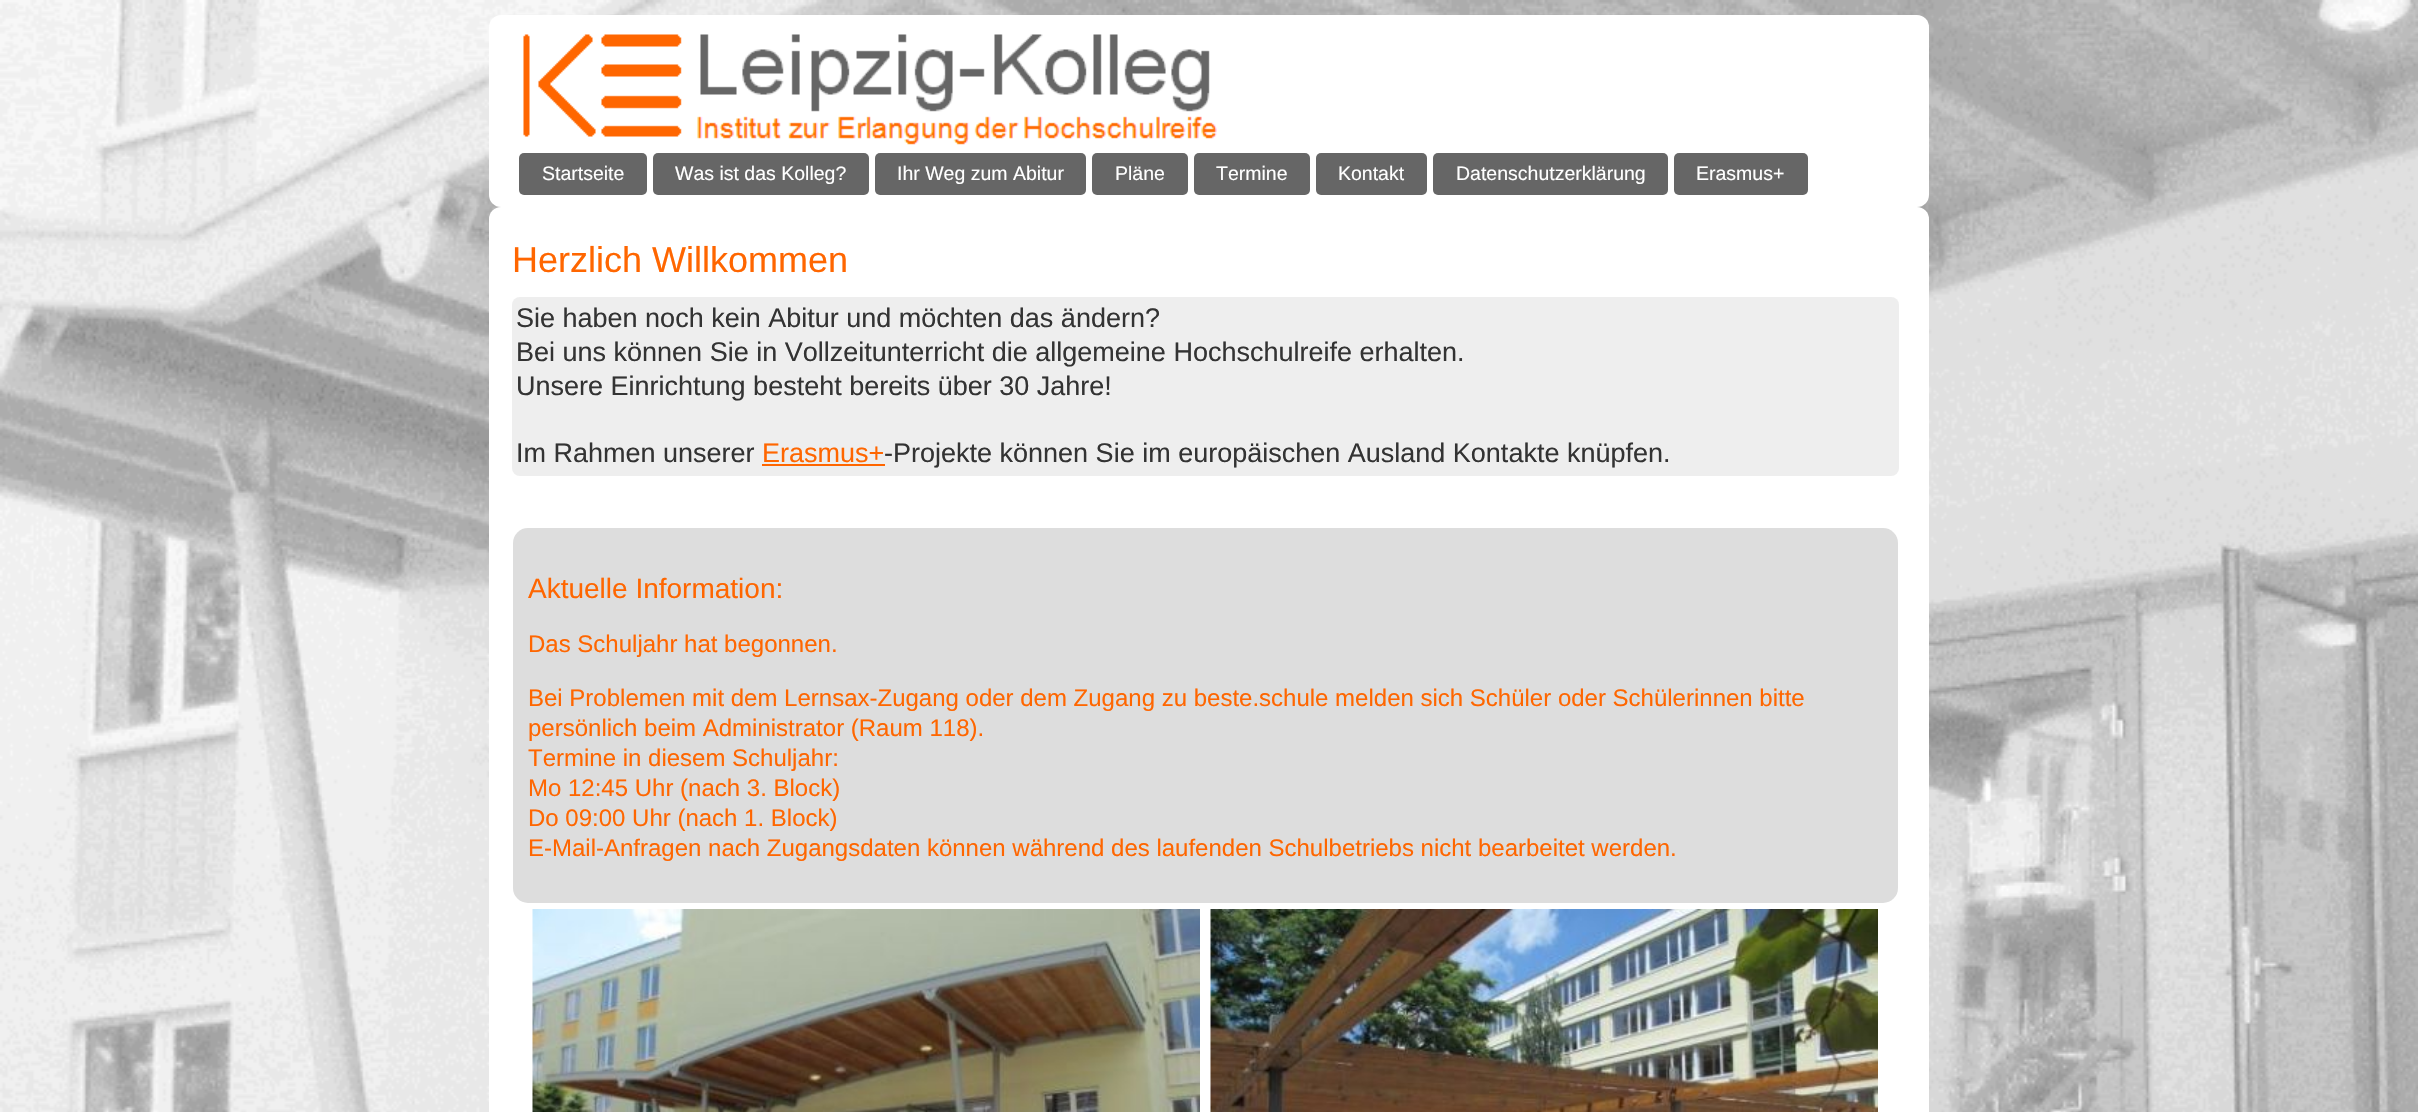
static SkFont makeFont(const char* family, int weight, float size, bool italic = false) {
  SkFontStyle style(weight, SkFontStyle::kNormal_Width,
    italic ? SkFontStyle::kItalic_Slant : SkFontStyle::kUpright_Slant);
  SkFont result(fontMgr->matchFamilyStyle(family, style), size);
  result.setSubpixel(true);
  return result;
}

static void text(SkCanvas* c, const char* s, float x, float y, const SkFont& font, SkColor color) {
  SkPaint ink(SkColor4f::FromColor(color));
  ink.setAntiAlias(true);
  c->drawString(s, x, y, font, ink);
}

static void box(SkCanvas* c, float l, float t, float r, float b, SkColor color) {
  SkPaint ink(SkColor4f::FromColor(color));
  ink.setAntiAlias(true);
  c->drawRect(SkRect::MakeLTRB(l, t, r, b), ink);
}

static void roundBox(SkCanvas* c, float l, float t, float r, float b, float radius, SkColor color) {
  SkPaint ink(SkColor4f::FromColor(color));
  ink.setAntiAlias(true);
  c->drawRoundRect(SkRect::MakeLTRB(l, t, r, b), radius, radius, ink);
}

static void picture(SkCanvas* c, const char* path, float l, float t, float r, float b) {
  auto image = SkImages::DeferredFromEncodedData(SkData::MakeFromFileName(path));
  c->drawImageRect(image, SkRect::MakeLTRB(l, t, r, b), SkSamplingOptions());
}

void draw(SkCanvas* c) {
  SkPaint paint;
  paint.setAntiAlias(true);
  c->clear(0xffffffff);
  picture(c, "img_01.png", 0, 0, 2418, 1112);
  roundBox(c, 489, 15, 1929, 207, 12, 0xffffffff);
  picture(c, "img_02.png", 523, 34, 1217, 145);
  roundBox(c, 519, 153, 647, 195, 5, 0xff666666);
  SkFont face1 = makeFont("Liberation Sans", 400, 19.5f);
  text(c, "Startseite", 542, 180, face1, 0xffffffff);
  roundBox(c, 653, 153, 869, 195, 5, 0xff666666);
  text(c, "Was ist das Kolleg?", 675, 180, face1, 0xffffffff);
  roundBox(c, 875, 153, 1086, 195, 5, 0xff666666);
  text(c, "Ihr Weg zum Abitur", 897, 180, face1, 0xffffffff);
  roundBox(c, 1092, 153, 1188, 195, 5, 0xff666666);
  text(c, "Pläne", 1115, 180, face1, 0xffffffff);
  roundBox(c, 1194, 153, 1310, 195, 5, 0xff666666);
  text(c, "Termine", 1216, 180, face1, 0xffffffff);
  roundBox(c, 1316, 153, 1427, 195, 5, 0xff666666);
  text(c, "Kontakt", 1338, 180, face1, 0xffffffff);
  roundBox(c, 1433, 153, 1668, 195, 5, 0xff666666);
  text(c, "Datenschutzerklärung", 1456, 180, face1, 0xffffffff);
  roundBox(c, 1674, 153, 1808, 195, 5, 0xff666666);
  text(c, "Erasmus+", 1696, 180, face1, 0xffffffff);
  roundBox(c, 489, 207, 1929, 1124, 12, 0xffffffff);
  SkFont face2 = makeFont("Liberation Sans", 400, 36);
  text(c, "Herzlich Willkommen", 512, 272, face2, 0xffff6600);
  roundBox(c, 512, 297, 1899, 476, 8, 0xffeeeeee);
  SkFont face3 = makeFont("Liberation Sans", 400, 27);
  text(c, "Sie haben noch kein Abitur und möchten das ändern?", 516, 327, face3, 0xff333333);
  text(c, "Bei uns können Sie in Vollzeitunterricht die allgemeine Hochschulreife erhalten.", 516, 361, face3, 0xff333333);
  text(c, "Unsere Einrichtung besteht bereits über 30 Jahre!", 516, 395, face3, 0xff333333);
  text(c, "Im Rahmen unserer", 516, 462, face3, 0xff333333);
  text(c, "Erasmus+", 762, 462, face3, 0xffff6600);
  box(c, 762, 464, 885, 466, 0xffff6600);
  text(c, "-Projekte können Sie im europäischen Ausland Kontakte knüpfen.", 884, 462, face3, 0xff333333);
  roundBox(c, 513, 528, 1898, 903, 15, 0xffdddddd);
  SkFont face4 = makeFont("Liberation Sans", 400, 28);
  text(c, "Aktuelle Information:", 528, 598, face4, 0xffff6600);
  SkFont face5 = makeFont("Liberation Sans", 400, 24);
  text(c, "Das Schuljahr hat begonnen.", 528, 652, face5, 0xffff6600);
  text(c, "Bei Problemen mit dem Lernsax-Zugang oder dem Zugang zu beste.schule melden sich Schüler oder Schülerinnen bitte", 528, 706, face5, 0xffff6600);
  text(c, "persönlich beim Administrator (Raum 118).", 528, 736, face5, 0xffff6600);
  text(c, "Termine in diesem Schuljahr:", 528, 766, face5, 0xffff6600);
  text(c, "Mo 12:45 Uhr (nach 3. Block)", 528, 796, face5, 0xffff6600);
  text(c, "Do 09:00 Uhr (nach 1. Block)", 528, 826, face5, 0xffff6600);
  text(c, "E-Mail-Anfragen nach Zugangsdaten können während des laufenden Schulbetriebs nicht bearbeitet werden.", 528, 856, face5, 0xffff6600);
  picture(c, "img_03.png", 532, 909, 1200, 1112);
  picture(c, "img_04.png", 1210, 909, 1878, 1112);
}
